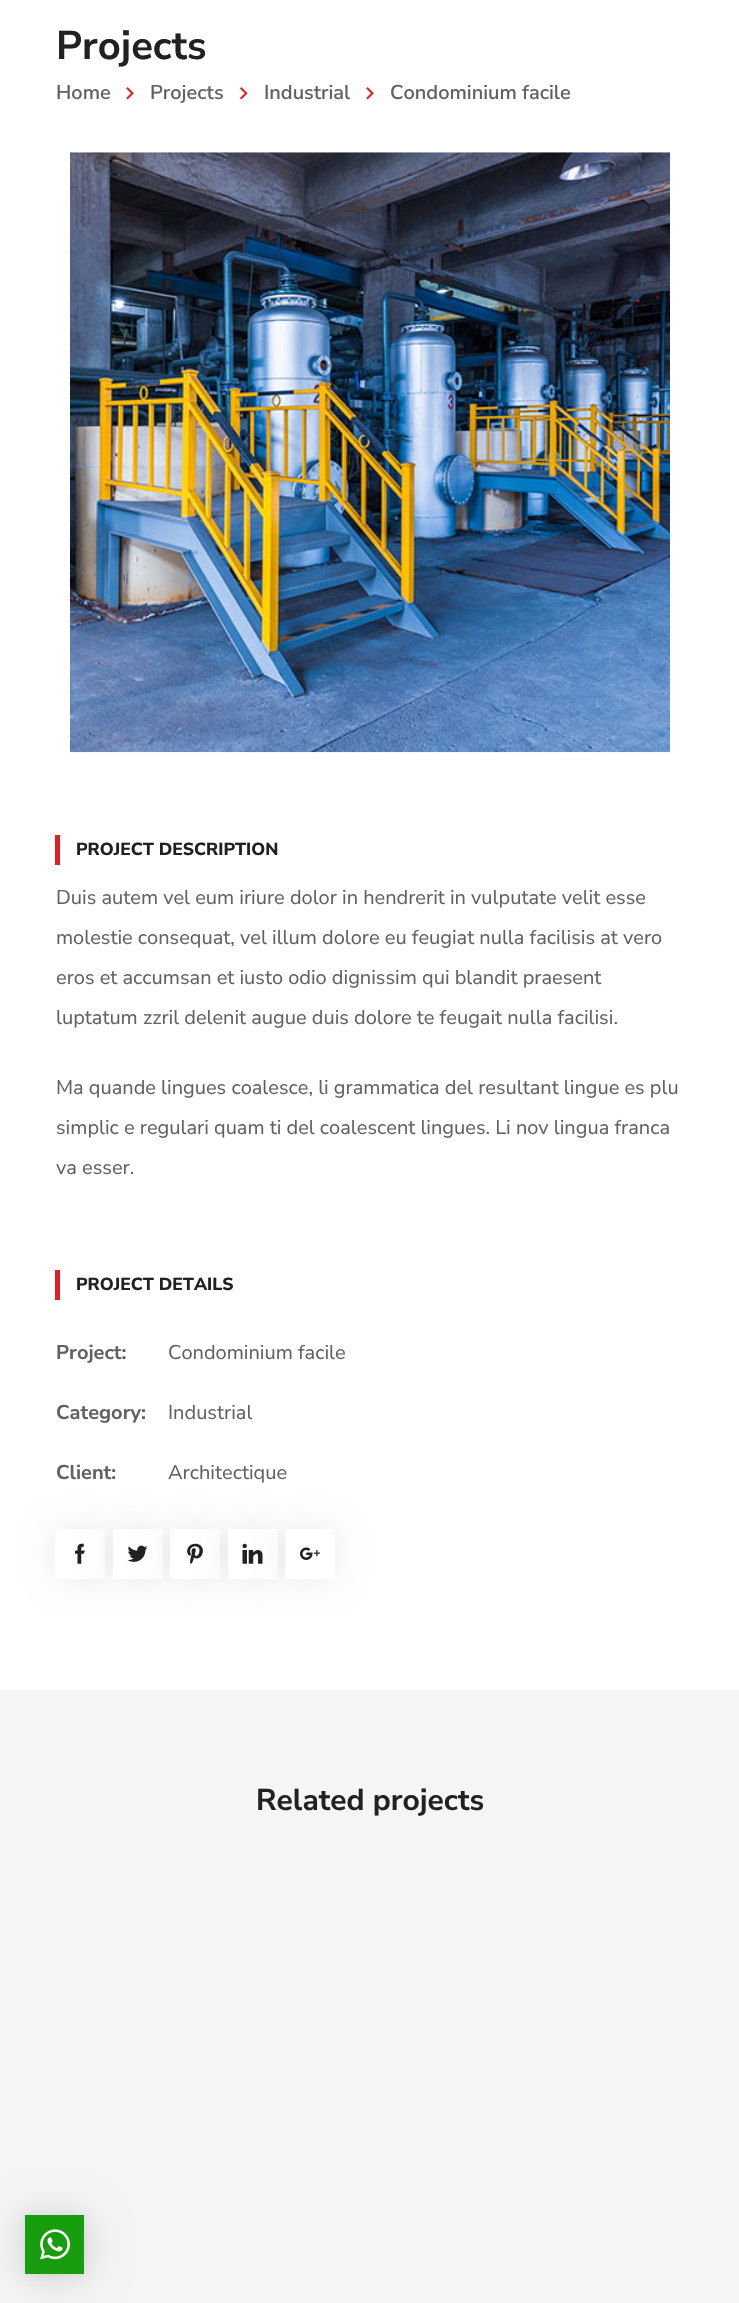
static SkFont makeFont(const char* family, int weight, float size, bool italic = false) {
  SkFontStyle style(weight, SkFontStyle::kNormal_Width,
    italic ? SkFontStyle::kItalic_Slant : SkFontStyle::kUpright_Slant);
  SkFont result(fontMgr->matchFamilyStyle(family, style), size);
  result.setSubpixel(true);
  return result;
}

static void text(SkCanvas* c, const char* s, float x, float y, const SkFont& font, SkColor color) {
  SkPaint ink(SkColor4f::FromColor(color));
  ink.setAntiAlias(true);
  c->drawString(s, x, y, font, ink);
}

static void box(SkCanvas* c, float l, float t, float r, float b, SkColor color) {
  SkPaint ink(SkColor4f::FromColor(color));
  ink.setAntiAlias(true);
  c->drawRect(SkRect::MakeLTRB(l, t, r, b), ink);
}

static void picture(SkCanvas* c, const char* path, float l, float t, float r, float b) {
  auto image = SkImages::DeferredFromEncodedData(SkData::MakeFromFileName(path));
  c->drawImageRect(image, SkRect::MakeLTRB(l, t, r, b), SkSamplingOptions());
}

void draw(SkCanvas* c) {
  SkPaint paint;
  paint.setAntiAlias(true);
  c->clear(0xffffffff);
  SkFont face1 = makeFont("Nunito Sans", 700, 40);
  text(c, "Projects", 56, 59, face1, 0xff212121);
  SkFont face2 = makeFont("Nunito Sans", 600, 20);
  text(c, "Home", 56, 99, face2, 0xff616161);
  picture(c, "img_01.png", 126, 87, 134, 100);
  text(c, "Projects", 150, 99, face2, 0xff616161);
  picture(c, "img_02.png", 240, 87, 248, 100);
  text(c, "Industrial", 264, 99, face2, 0xff616161);
  picture(c, "img_01.png", 366, 87, 374, 100);
  text(c, "Condominium facile", 390, 99, face2, 0xff616161);
  picture(c, "img_03.png", 70, 152, 670, 753);
  box(c, 55, 835, 60, 865, 0xffdf2125);
  SkFont face3 = makeFont("Nunito Sans", 800, 17.5f);
  text(c, "PROJECT DESCRIPTION", 76, 855, face3, 0xff212121);
  SkFont face4 = makeFont("Nunito Sans", 400, 20);
  text(c, "Duis autem vel eum iriure dolor in hendrerit in vulputate velit esse", 56, 904, face4, 0xff616161);
  text(c, "molestie consequat, vel illum dolore eu feugiat nulla facilisis at vero", 56, 944, face4, 0xff616161);
  text(c, "eros et accumsan et iusto odio dignissim qui blandit praesent", 56, 984, face4, 0xff616161);
  text(c, "luptatum zzril delenit augue duis dolore te feugait nulla facilisi.", 56, 1024, face4, 0xff616161);
  text(c, "Ma quande lingues coalesce, li grammatica del resultant lingue es plu", 56, 1094, face4, 0xff616161);
  text(c, "simplic e regulari quam ti del coalescent lingues. Li nov lingua franca", 56, 1134, face4, 0xff616161);
  text(c, "va esser.", 56, 1174, face4, 0xff616161);
  box(c, 55, 1270, 60, 1300, 0xffdf2125);
  text(c, "PROJECT DETAILS", 76, 1290, face3, 0xff212121);
  SkFont face5 = makeFont("Nunito Sans", 700, 20);
  text(c, "Project:", 56, 1359, face5, 0xff616161);
  text(c, "Condominium facile", 168, 1359, face4, 0xff616161);
  text(c, "Category:", 56, 1419, face5, 0xff616161);
  text(c, "Industrial", 168, 1419, face4, 0xff616161);
  text(c, "Client:", 56, 1479, face5, 0xff616161);
  text(c, "Architectique", 168, 1479, face4, 0xff616161);
  paint.setColor(0x14000000);
  paint.setMaskFilter(SkMaskFilter::MakeBlur(kNormal_SkBlurStyle, 15));
  c->drawRect(SkRect::MakeLTRB(55, 1529, 105, 1579), paint);
  paint.setMaskFilter(nullptr);
  box(c, 55, 1529, 105, 1579, 0xffffffff);
  picture(c, "img_04.png", 75, 1543, 85, 1564);
  paint.setMaskFilter(SkMaskFilter::MakeBlur(kNormal_SkBlurStyle, 15));
  c->drawRect(SkRect::MakeLTRB(113, 1529, 163, 1579), paint);
  paint.setMaskFilter(nullptr);
  box(c, 113, 1529, 163, 1579, 0xffffffff);
  picture(c, "img_05.png", 127, 1545, 148, 1562);
  paint.setMaskFilter(SkMaskFilter::MakeBlur(kNormal_SkBlurStyle, 15));
  c->drawRect(SkRect::MakeLTRB(170, 1529, 220, 1579), paint);
  paint.setMaskFilter(nullptr);
  box(c, 170, 1529, 220, 1579, 0xffffffff);
  picture(c, "img_06.png", 187, 1543, 203, 1564);
  paint.setMaskFilter(SkMaskFilter::MakeBlur(kNormal_SkBlurStyle, 15));
  c->drawRect(SkRect::MakeLTRB(228, 1529, 278, 1579), paint);
  paint.setMaskFilter(nullptr);
  box(c, 228, 1529, 278, 1579, 0xffffffff);
  picture(c, "img_07.png", 242, 1543, 263, 1564);
  paint.setMaskFilter(SkMaskFilter::MakeBlur(kNormal_SkBlurStyle, 15));
  c->drawRect(SkRect::MakeLTRB(285, 1529, 335, 1579), paint);
  paint.setMaskFilter(nullptr);
  box(c, 285, 1529, 335, 1579, 0xffffffff);
  picture(c, "img_08.png", 300, 1547, 320, 1560);
  box(c, 0, 1690, 739, 2303, 0xfff5f5f5);
  SkFont face6 = makeFont("Nunito Sans", 700, 30);
  text(c, "Related projects", 256, 1810, face6, 0xff212121);
  paint.setColor(0x29000000);
  paint.setMaskFilter(SkMaskFilter::MakeBlur(kNormal_SkBlurStyle, 20));
  c->drawRect(SkRect::MakeLTRB(25, 2218, 84, 2276), paint);
  paint.setMaskFilter(nullptr);
  paint.setColor(0x0f000000);
  paint.setMaskFilter(SkMaskFilter::MakeBlur(kNormal_SkBlurStyle, 4));
  c->drawRect(SkRect::MakeLTRB(25, 2216, 84, 2275), paint);
  paint.setMaskFilter(nullptr);
  box(c, 25, 2215, 84, 2274, 0xff189d0e);
  picture(c, "img_09.png", 40, 2229, 70, 2260);
}
